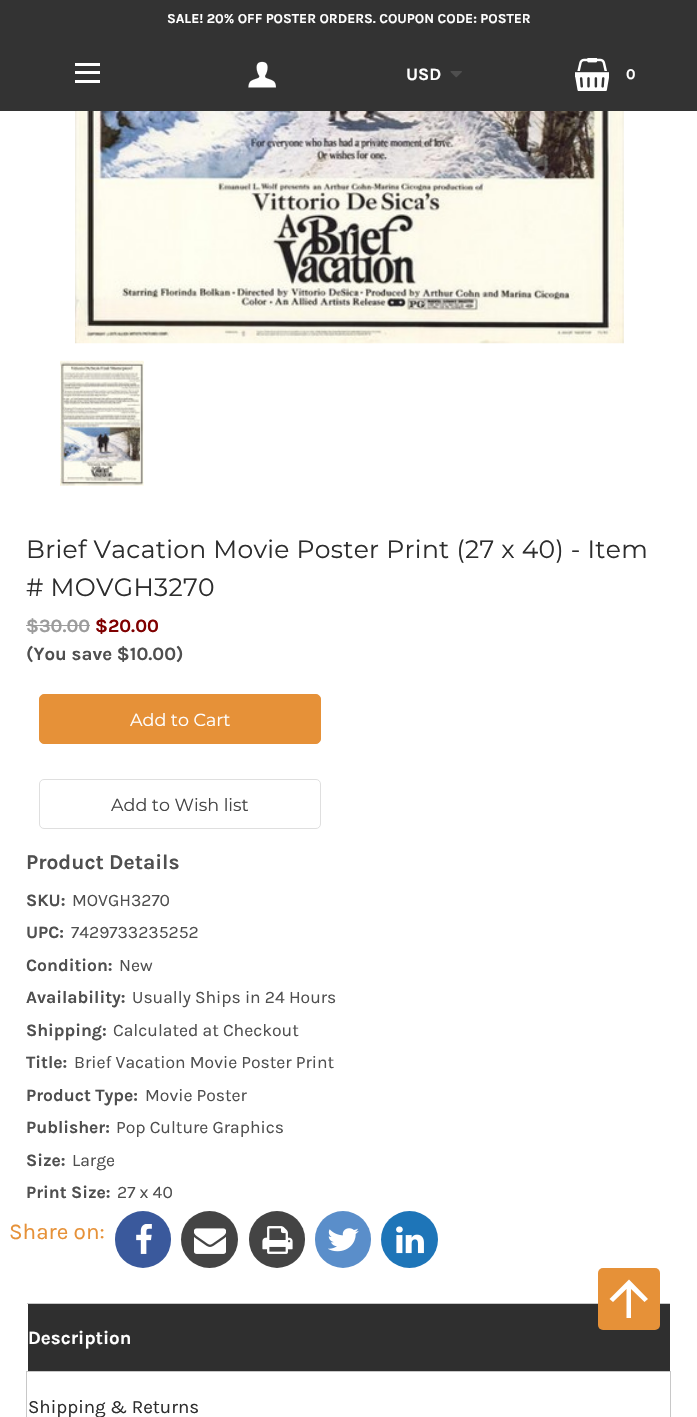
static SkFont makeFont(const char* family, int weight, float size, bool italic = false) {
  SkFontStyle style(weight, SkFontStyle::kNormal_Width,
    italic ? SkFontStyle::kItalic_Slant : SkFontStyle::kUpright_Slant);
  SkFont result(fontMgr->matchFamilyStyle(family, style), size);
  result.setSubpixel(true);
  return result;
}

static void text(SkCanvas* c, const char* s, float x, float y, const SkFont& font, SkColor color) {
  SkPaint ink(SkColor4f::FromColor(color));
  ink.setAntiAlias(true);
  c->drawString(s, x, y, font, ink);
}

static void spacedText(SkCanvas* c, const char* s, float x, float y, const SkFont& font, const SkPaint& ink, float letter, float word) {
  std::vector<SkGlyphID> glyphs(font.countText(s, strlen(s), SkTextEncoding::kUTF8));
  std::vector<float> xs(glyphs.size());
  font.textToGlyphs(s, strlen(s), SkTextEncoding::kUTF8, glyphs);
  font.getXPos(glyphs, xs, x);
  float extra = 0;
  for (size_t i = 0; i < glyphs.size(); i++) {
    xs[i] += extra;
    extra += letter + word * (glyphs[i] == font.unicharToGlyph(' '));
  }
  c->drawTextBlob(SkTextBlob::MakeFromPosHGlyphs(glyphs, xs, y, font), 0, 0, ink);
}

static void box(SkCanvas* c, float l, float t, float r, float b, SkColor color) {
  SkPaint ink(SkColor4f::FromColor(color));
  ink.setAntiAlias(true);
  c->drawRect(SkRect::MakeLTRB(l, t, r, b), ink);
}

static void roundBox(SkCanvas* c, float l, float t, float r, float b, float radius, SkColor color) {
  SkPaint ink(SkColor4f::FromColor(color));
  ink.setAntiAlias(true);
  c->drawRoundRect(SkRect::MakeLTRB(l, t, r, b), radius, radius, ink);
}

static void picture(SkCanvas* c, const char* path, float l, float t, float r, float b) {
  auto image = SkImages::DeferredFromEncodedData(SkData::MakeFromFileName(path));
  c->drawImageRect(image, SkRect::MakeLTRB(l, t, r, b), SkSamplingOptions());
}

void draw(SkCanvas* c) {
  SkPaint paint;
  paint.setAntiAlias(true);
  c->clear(0xffffffff);
  box(c, 0, 0, 697, 111, 0xff333333);
  SkFont face1 = makeFont("Karla", 700, 13.75f);
  text(c, "SALE! 20% OFF POSTER ORDERS. COUPON CODE: POSTER", 167, 23, face1, 0xffffffff);
  box(c, 75, 71, 100, 74, 0xffffffff);
  box(c, 75, 63, 100, 66, 0xffffffff);
  box(c, 75, 80, 100, 83, 0xffffffff);
  picture(c, "img_01.png", 248, 61, 276, 88);
  SkFont face2 = makeFont("Karla", 700, 17.5f);
  text(c, "USD", 406, 80, face2, 0xffffffff);
  picture(c, "img_02.png", 450, 71, 462, 78);
  picture(c, "img_03.png", 575, 58, 609, 91);
  SkFont face3 = makeFont("Karla", 700, 15);
  text(c, "0", 626, 79, face3, 0xffffffff);
  picture(c, "img_04.png", 75, 111, 624, 344);
  picture(c, "img_05.png", 60, 360, 144, 486);
  SkFont face4 = makeFont("Montserrat", 400, 25);
  paint.setColor(0xff2d2d2d);
  spacedText(c, "Brief Vacation Movie Poster Print (27 x 40) - Item", 26, 558, face4, paint, 0.3f, 0);
  spacedText(c, "# MOVGH3270", 26, 596, face4, paint, 0.3f, 0);
  SkFont face5 = makeFont("Karla", 700, 18.75f);
  text(c, "$30.00", 26, 632, face5, 0xff9c9c9c);
  box(c, 26, 625, 90, 626, 0xff9c9c9c);
  text(c, "$20.00", 95, 632, face5, 0xff7f0000);
  text(c, "(You save $10.00)", 26, 660, face5, 0xff4f4f4f);
  paint.setColor(0xffe69138);
  c->drawRoundRect(SkRect::MakeLTRB(39.5f, 694.5f, 320.5f, 743.5f), 4.5f, 4.5f, paint);
  paint.setStyle(SkPaint::kStroke_Style);
  paint.setStrokeWidth(1);
  c->drawRoundRect(SkRect::MakeLTRB(39.5f, 694.5f, 320.5f, 743.5f), 4.5f, 4.5f, paint);
  SkFont face6 = makeFont("Montserrat", 400, 17.5f);
  text(c, "Add to Cart", 130, 726, face6, 0xffffffff);
  paint.setColor(0xffdfdfdf);
  c->drawRoundRect(SkRect::MakeLTRB(39.5f, 779.5f, 320.5f, 828.5f), 4.5f, 4.5f, paint);
  text(c, "Add to Wish list", 111, 811, face6, 0xff454545);
  SkFont face7 = makeFont("Karla", 700, 21);
  text(c, "Product Details", 26, 869, face7, 0xff4f4f4f);
  text(c, "SKU:", 26, 906, face2, 0xff4f4f4f);
  SkFont face8 = makeFont("Karla", 400, 17.5f);
  text(c, "MOVGH3270", 72, 906, face8, 0xff4f4f4f);
  text(c, "UPC:", 26, 938, face2, 0xff4f4f4f);
  text(c, "7429733235252", 71, 938, face8, 0xff4f4f4f);
  text(c, "Condition:", 26, 971, face2, 0xff4f4f4f);
  text(c, "New", 119, 971, face8, 0xff4f4f4f);
  text(c, "Availability:", 26, 1003, face2, 0xff4f4f4f);
  text(c, "Usually Ships in 24 Hours", 132, 1003, face8, 0xff4f4f4f);
  text(c, "Shipping:", 26, 1036, face2, 0xff4f4f4f);
  text(c, "Calculated at Checkout", 113, 1036, face8, 0xff4f4f4f);
  text(c, "Title:", 26, 1068, face2, 0xff4f4f4f);
  text(c, "Brief Vacation Movie Poster Print", 74, 1068, face8, 0xff4f4f4f);
  text(c, "Product Type:", 26, 1101, face2, 0xff4f4f4f);
  text(c, "Movie Poster", 145, 1101, face8, 0xff4f4f4f);
  text(c, "Publisher:", 26, 1133, face2, 0xff4f4f4f);
  text(c, "Pop Culture Graphics", 116, 1133, face8, 0xff4f4f4f);
  text(c, "Size:", 26, 1166, face2, 0xff4f4f4f);
  text(c, "Large", 72, 1166, face8, 0xff4f4f4f);
  text(c, "Print Size:", 26, 1198, face2, 0xff4f4f4f);
  text(c, "27 x 40", 117, 1198, face8, 0xff4f4f4f);
  SkFont face9 = makeFont("Karla", 400, 22.5f);
  text(c, "Share on:", 9, 1239, face9, 0xffe69138);
  roundBox(c, 115, 1211, 171, 1268, 28, 0xff3a599c);
  picture(c, "img_06.png", 136, 1224, 152, 1254);
  paint.setStyle(SkPaint::kFill_Style);
  paint.setColor(0xff444444);
  c->drawCircle(209.5f, 1239.5f, 28.5f, paint);
  picture(c, "img_07.png", 194, 1228, 226, 1254);
  roundBox(c, 249, 1211, 305, 1268, 28, 0xff444444);
  picture(c, "img_08.png", 262, 1226, 293, 1254);
  roundBox(c, 315, 1211, 371, 1268, 28, 0xff5a8eca);
  picture(c, "img_09.png", 328, 1228, 359, 1252);
  paint.setColor(0xff1e75b8);
  c->drawCircle(409.5f, 1239.5f, 28.5f, paint);
  picture(c, "img_10.png", 396, 1226, 424, 1254);
  box(c, 26, 1303, 671, 1304, 0xffc8c8c8);
  box(c, 670, 1303, 671, 1304, 0xffffffff);
  box(c, 26, 1303, 27, 1304, 0xffffffff);
  box(c, 28, 1304, 670, 1371, 0xff2f2f2f);
  text(c, "Description", 28, 1344, face5, 0xffffffff);
  paint.setStyle(SkPaint::kStroke_Style);
  paint.setColor(0xffc8c8c8);
  c->drawRect(SkRect::MakeLTRB(26.5f, 1371.5f, 670.5f, 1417.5f), paint);
  SkFont face10 = makeFont("Karla", 400, 18.75f);
  text(c, "Shipping & Returns", 28, 1413, face10, 0xff2d2d2d);
  roundBox(c, 598, 1268, 660, 1330, 5, 0xffe69138);
  paint.setStyle(SkPaint::kFill_Style);
  paint.setColor(0xffffffff);
  c->drawPath(SkPathBuilder().moveTo(631, 1318).lineTo(631, 1289).lineTo(644.5f, 1302).lineTo(648, 1299).lineTo(629, 1279.5f).lineTo(609.5f, 1299).lineTo(613, 1302).lineTo(626.5f, 1289).lineTo(626.5f, 1318).close().detach(), paint);
}
